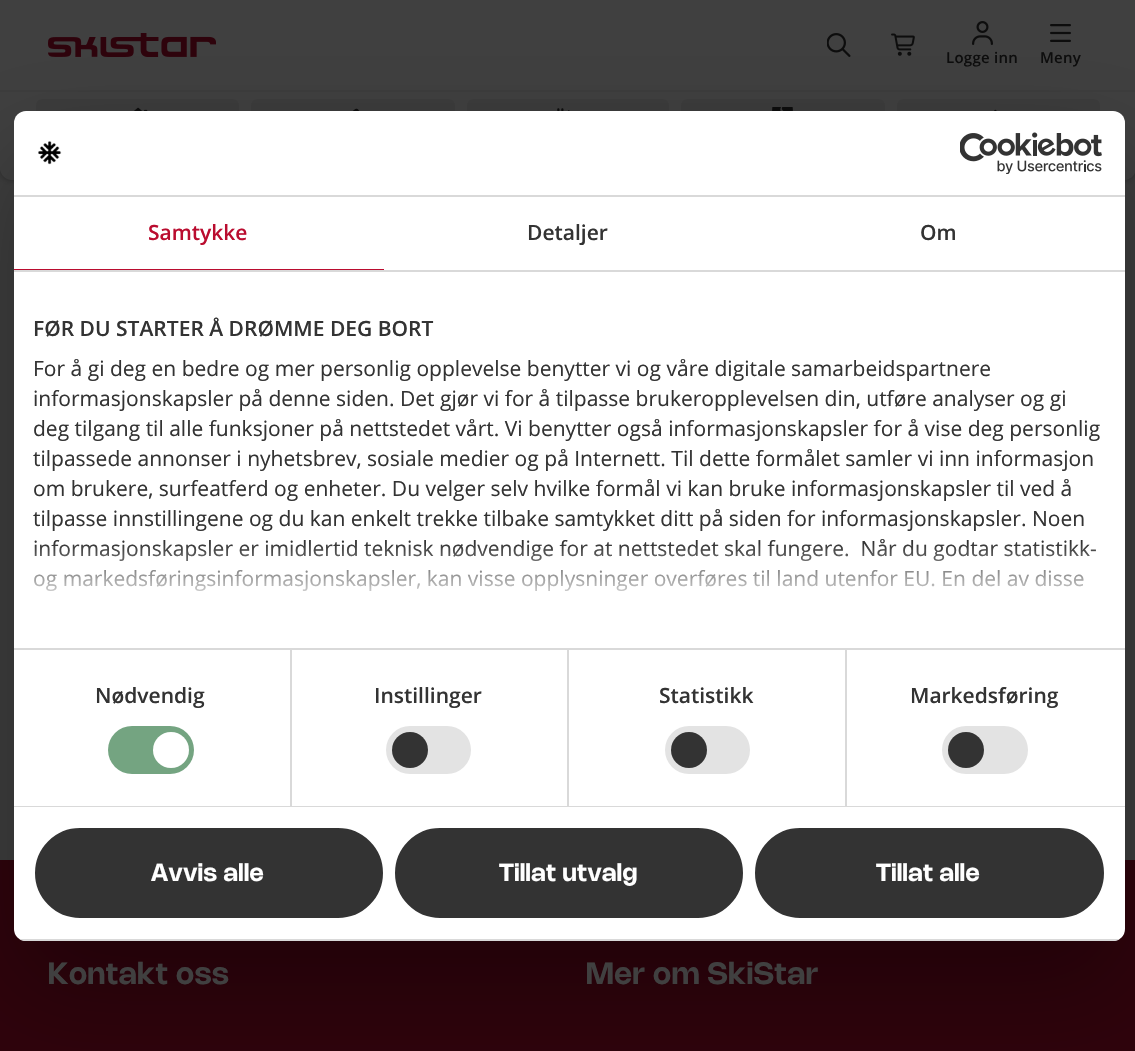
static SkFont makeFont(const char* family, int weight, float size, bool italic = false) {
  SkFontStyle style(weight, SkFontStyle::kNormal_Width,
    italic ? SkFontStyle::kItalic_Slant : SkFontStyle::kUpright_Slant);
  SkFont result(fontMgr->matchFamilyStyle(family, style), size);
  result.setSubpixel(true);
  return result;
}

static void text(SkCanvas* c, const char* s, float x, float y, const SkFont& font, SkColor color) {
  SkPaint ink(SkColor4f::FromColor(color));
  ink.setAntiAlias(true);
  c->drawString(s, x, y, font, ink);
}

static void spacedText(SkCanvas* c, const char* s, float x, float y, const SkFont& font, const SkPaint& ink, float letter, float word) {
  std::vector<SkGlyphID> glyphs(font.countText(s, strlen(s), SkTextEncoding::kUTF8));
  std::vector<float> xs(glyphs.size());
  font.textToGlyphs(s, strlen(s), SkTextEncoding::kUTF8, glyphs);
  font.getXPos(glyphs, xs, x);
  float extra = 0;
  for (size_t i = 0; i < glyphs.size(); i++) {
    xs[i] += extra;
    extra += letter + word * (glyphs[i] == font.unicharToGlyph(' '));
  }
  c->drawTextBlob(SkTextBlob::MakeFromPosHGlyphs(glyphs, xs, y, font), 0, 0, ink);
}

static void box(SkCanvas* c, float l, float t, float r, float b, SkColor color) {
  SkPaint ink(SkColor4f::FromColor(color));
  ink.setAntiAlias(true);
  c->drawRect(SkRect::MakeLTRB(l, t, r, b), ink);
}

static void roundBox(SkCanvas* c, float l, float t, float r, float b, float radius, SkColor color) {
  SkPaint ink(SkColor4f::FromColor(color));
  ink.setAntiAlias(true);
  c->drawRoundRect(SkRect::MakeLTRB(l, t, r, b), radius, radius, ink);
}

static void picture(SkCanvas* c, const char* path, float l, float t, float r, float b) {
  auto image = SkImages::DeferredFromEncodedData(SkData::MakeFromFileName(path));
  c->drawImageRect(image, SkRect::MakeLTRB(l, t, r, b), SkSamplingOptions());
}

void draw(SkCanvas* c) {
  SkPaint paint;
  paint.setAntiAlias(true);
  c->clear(0xff3e3e3e);
  paint.setColor(0x4d000000);
  paint.setMaskFilter(SkMaskFilter::MakeBlur(kNormal_SkBlurStyle, 3));
  c->drawRoundRect(SkRect::MakeLTRB(0, 90, 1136, 180), 12, 12, paint);
  paint.setMaskFilter(nullptr);
  paint.setColor(0xff404040);
  c->drawPath(SkPathBuilder().moveTo(0, 90).lineTo(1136, 90).lineTo(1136, 168).cubicTo(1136, 174.5f, 1130.5f, 180, 1124, 180).lineTo(12, 180).cubicTo(5.5f, 180, 0, 174.5f, 0, 168).close().detach(), paint);
  paint.setStyle(SkPaint::kStroke_Style);
  paint.setStrokeWidth(2);
  paint.setColor(0x0d000000);
  c->drawRect(SkRect::MakeLTRB(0, 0, 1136, 91), paint);
  box(c, 0, 0, 1135, 90, 0xff404040);
  picture(c, "img_01.png", 48, 33, 216, 57);
  picture(c, "img_02.png", 827, 33, 851, 57);
  picture(c, "img_03.png", 891, 33, 915, 56);
  picture(c, "img_04.png", 972, 21, 993, 45);
  SkFont face1 = makeFont("Open Sans", 600, 15);
  paint.setStyle(SkPaint::kFill_Style);
  paint.setColor(0xff0d0d0d);
  spacedText(c, "Logge inn", 946, 63, face1, paint, 0.25f, 0);
  picture(c, "img_05.png", 1050, 24, 1071, 42);
  spacedText(c, "Meny", 1040, 63, face1, paint, 0.25f, 0);
  roundBox(c, 36, 99, 239, 171, 6, 0xff3c3c3c);
  picture(c, "img_06.png", 134, 107, 148, 111);
  roundBox(c, 251, 99, 455, 171, 6, 0xff3c3c3c);
  picture(c, "img_07.png", 352, 108, 360, 111);
  roundBox(c, 467, 99, 669, 171, 6, 0xff3c3c3c);
  picture(c, "img_08.png", 557, 108, 570, 111);
  roundBox(c, 681, 99, 885, 171, 6, 0xff3c3c3c);
  picture(c, "img_09.png", 772, 107, 793, 111);
  roundBox(c, 897, 99, 1100, 171, 6, 0xff3c3c3c);
  picture(c, "img_10.png", 994, 109, 997, 111);
  box(c, 0, 860, 1135, 1051, 0xff2f030c);
  paint.setColor(0x4d000000);
  paint.setMaskFilter(SkMaskFilter::MakeBlur(kNormal_SkBlurStyle, 51));
  c->drawRoundRect(SkRect::MakeLTRB(14, 159, 1125, 989), 12, 12, paint);
  paint.setMaskFilter(nullptr);
  roundBox(c, 14, 111, 1125, 941, 12, 0xffffffff);
  box(c, 14, 195, 1125, 197, 0xffd9d9d9);
  picture(c, "img_11.png", 38, 141, 62, 165);
  picture(c, "img_12.png", 960, 132, 1102, 174);
  box(c, 14, 270, 1125, 272, 0xffd9d9d9);
  box(c, 14, 269, 384, 270, 0xffba0c2f);
  SkFont face2 = makeFont("Open Sans", 600, 21);
  text(c, "Samtykke", 148, 240, face2, 0xffba0c2f);
  text(c, "Detaljer", 527, 240, face2, 0xff333333);
  text(c, "Om", 920, 240, face2, 0xff333333);
  box(c, 14, 648, 1125, 650, 0xffd9d9d9);
  text(c, "FØR DU STARTER Å DRØMME DEG BORT", 33, 336, face2, 0xff333333);
  SkFont face3 = makeFont("Open Sans", 400, 21);
  text(c, "For å gi deg en bedre og mer personlig opplevelse benytter vi og våre digitale samarbeidspartnere", 33, 376, face3, 0xff333333);
  text(c, "informasjonskapsler på denne siden. Det gjør vi for å tilpasse brukeropplevelsen din, utføre analyser og gi", 33, 406, face3, 0xff333333);
  text(c, "deg tilgang til alle funksjoner på nettstedet vårt. Vi benytter også informasjonskapsler for å vise deg personlig", 33, 436, face3, 0xff333333);
  text(c, "tilpassede annonser i nyhetsbrev, sosiale medier og på Internett. Til dette formålet samler vi inn informasjon", 33, 466, face3, 0xff333333);
  text(c, "om brukere, surfeatferd og enheter. Du velger selv hvilke formål vi kan bruke informasjonskapsler til ved å", 33, 496, face3, 0xff333333);
  text(c, "tilpasse innstillingene og du kan enkelt trekke tilbake samtykket ditt på siden for informasjonskapsler. Noen", 33, 526, face3, 0xff333333);
  text(c, "informasjonskapsler er imidlertid teknisk nødvendige for at nettstedet skal fungere.  Når du godtar statistikk-", 33, 556, face3, 0xff333333);
  text(c, "og markedsføringsinformasjonskapsler, kan visse opplysninger overføres til land utenfor EU. En del av disse", 33, 586, face3, 0xff333333);
  {
    const SkColor colors[] = {0xffffffff, 0xccffffff, 0x00ffffff};
    const float stops[] = {0, 0.5f, 1};
    const SkPoint ends[] = {{560, 648}, {560, 543}};
    paint.setShader(SkGradientShader::MakeLinear(ends, colors, stops, 3, SkTileMode::kClamp));
    paint.setAlpha(255);
  }
  c->drawRect(SkRect::MakeLTRB(34, 544, 1096, 592), paint);
  box(c, 14, 806, 1125, 807, 0xffd9d9d9);
  box(c, 290, 650, 292, 806, 0xffd9d9d9);
  text(c, "Nødvendig", 95, 703, face2, 0xff333333);
  roundBox(c, 108, 726, 194, 774, 24, 0xff74a481);
  paint.setShader(nullptr);
  paint.setColor(0xffffffff);
  c->drawCircle(171, 750, 18, paint);
  box(c, 567, 650, 569, 806, 0xffd9d9d9);
  text(c, "Instillinger", 374, 703, face2, 0xff333333);
  roundBox(c, 386, 726, 471, 774, 24, 0xffe3e3e3);
  paint.setColor(0xff333333);
  c->drawCircle(410, 750, 18, paint);
  box(c, 845, 650, 847, 806, 0xffd9d9d9);
  text(c, "Statistikk", 659, 703, face2, 0xff333333);
  roundBox(c, 665, 726, 750, 774, 24, 0xffe3e3e3);
  c->drawCircle(689, 750, 18, paint);
  text(c, "Markedsføring", 910, 703, face2, 0xff333333);
  roundBox(c, 942, 726, 1028, 774, 24, 0xffe3e3e3);
  c->drawCircle(966, 750, 18, paint);
  c->save();
  c->clipPath(SkPathBuilder().moveTo(26, 111).lineTo(1113, 111).cubicTo(1119.5f, 111, 1125, 116.5f, 1125, 123).lineTo(1125, 929).cubicTo(1125, 935.5f, 1119.5f, 941, 1113, 941).lineTo(26, 941).cubicTo(19.5f, 941, 14, 935.5f, 14, 929).lineTo(14, 123).cubicTo(14, 116.5f, 19.5f, 111, 26, 111).close().detach(), true);
  box(c, 14, 939, 1125, 941, 0xffd9d9d9);
  c->restore();
  c->drawRoundRect(SkRect::MakeLTRB(36.5f, 829.5f, 381.5f, 916.5f), 43.5f, 43.5f, paint);
  paint.setStyle(SkPaint::kStroke_Style);
  paint.setStrokeWidth(3);
  c->drawRoundRect(SkRect::MakeLTRB(36.5f, 829.5f, 381.5f, 916.5f), 43.5f, 43.5f, paint);
  SkFont face4 = makeFont("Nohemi", 600, 24);
  paint.setStyle(SkPaint::kFill_Style);
  paint.setColor(0xffffffff);
  spacedText(c, "Avvis alle", 151, 881, face4, paint, 0.5f, 0);
  paint.setColor(0xff333333);
  c->drawRoundRect(SkRect::MakeLTRB(396.5f, 829.5f, 741.5f, 916.5f), 43.5f, 43.5f, paint);
  paint.setStyle(SkPaint::kStroke_Style);
  c->drawRoundRect(SkRect::MakeLTRB(396.5f, 829.5f, 741.5f, 916.5f), 43.5f, 43.5f, paint);
  paint.setStyle(SkPaint::kFill_Style);
  paint.setColor(0xffffffff);
  spacedText(c, "Tillat utvalg", 499, 881, face4, paint, 0.5f, 0);
  paint.setColor(0xff333333);
  c->drawRoundRect(SkRect::MakeLTRB(756.5f, 829.5f, 1102.5f, 916.5f), 43.5f, 43.5f, paint);
  paint.setStyle(SkPaint::kStroke_Style);
  c->drawRoundRect(SkRect::MakeLTRB(756.5f, 829.5f, 1102.5f, 916.5f), 43.5f, 43.5f, paint);
  paint.setStyle(SkPaint::kFill_Style);
  paint.setColor(0xffffffff);
  spacedText(c, "Tillat alle", 876, 881, face4, paint, 0.5f, 0);
  SkFont face5 = makeFont("Nohemi", 600, 30);
  paint.setColor(0xff404040);
  spacedText(c, "Kontakt oss", 48, 984, face5, paint, 0.6f, 0);
  spacedText(c, "Mer om SkiStar", 586, 984, face5, paint, 0.6f, 0);
}
